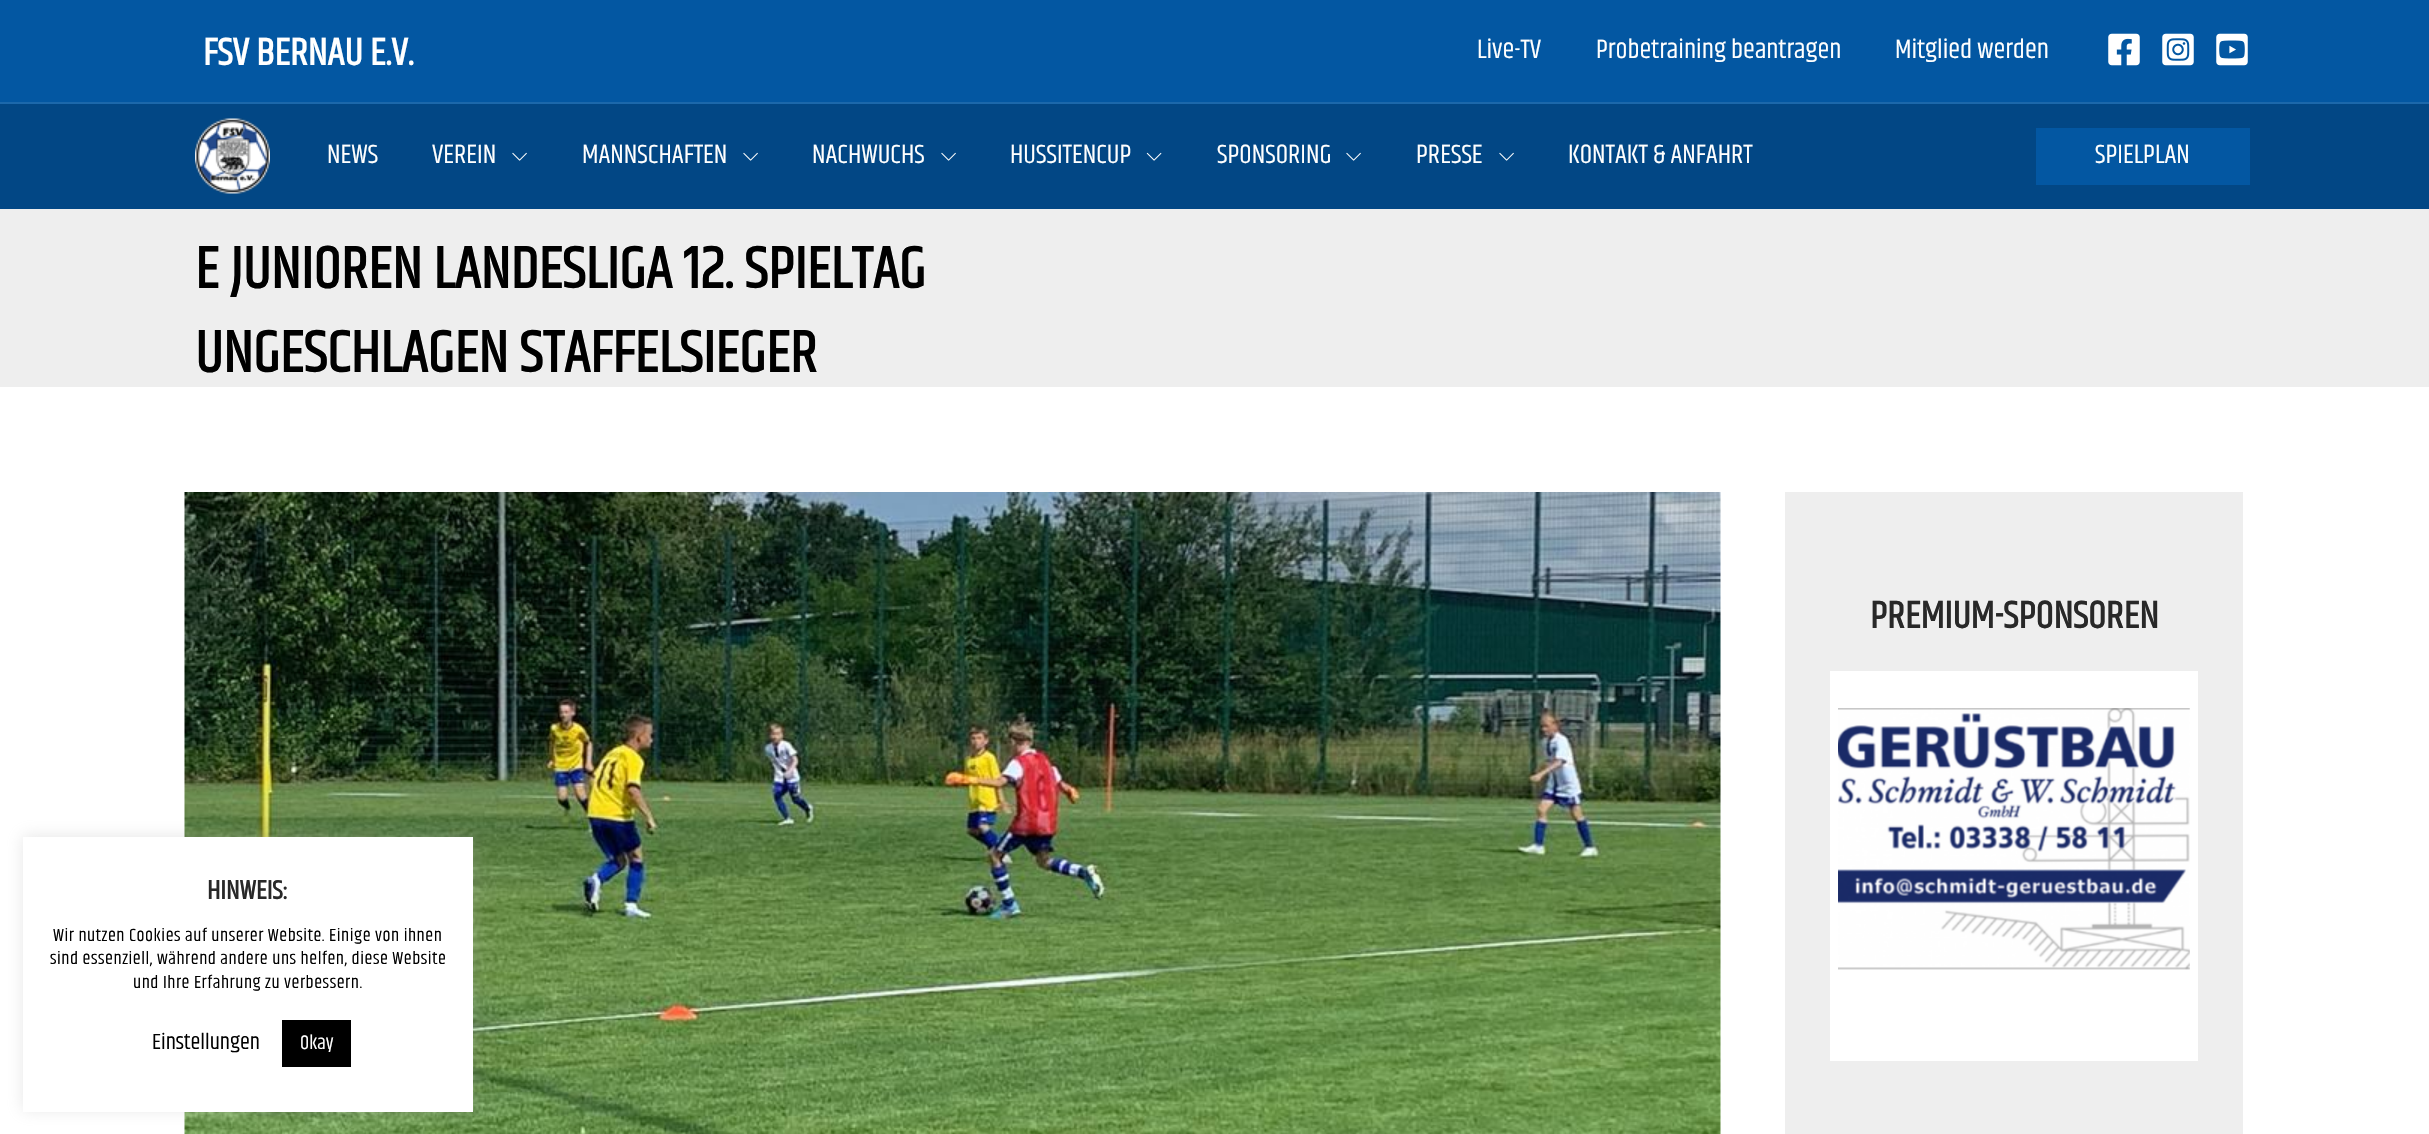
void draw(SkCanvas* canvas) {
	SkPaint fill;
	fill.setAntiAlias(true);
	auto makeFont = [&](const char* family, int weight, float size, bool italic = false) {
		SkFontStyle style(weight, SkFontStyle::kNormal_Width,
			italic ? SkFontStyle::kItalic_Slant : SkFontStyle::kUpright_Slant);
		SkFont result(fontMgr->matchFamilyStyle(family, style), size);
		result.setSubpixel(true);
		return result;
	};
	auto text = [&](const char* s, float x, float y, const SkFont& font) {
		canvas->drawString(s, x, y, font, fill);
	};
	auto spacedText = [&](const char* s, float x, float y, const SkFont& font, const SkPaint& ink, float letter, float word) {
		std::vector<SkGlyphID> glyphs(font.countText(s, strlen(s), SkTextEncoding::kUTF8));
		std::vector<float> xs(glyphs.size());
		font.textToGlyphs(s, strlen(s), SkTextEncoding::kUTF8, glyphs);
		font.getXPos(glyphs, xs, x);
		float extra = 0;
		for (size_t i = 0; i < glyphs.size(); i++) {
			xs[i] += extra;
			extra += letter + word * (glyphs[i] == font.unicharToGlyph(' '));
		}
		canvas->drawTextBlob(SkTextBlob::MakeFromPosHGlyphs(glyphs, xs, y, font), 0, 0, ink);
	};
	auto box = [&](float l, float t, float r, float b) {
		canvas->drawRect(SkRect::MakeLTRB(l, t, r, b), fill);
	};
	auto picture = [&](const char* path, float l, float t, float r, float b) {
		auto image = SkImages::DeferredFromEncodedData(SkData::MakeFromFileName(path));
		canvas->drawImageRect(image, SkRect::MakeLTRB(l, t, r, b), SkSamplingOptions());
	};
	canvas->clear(0xFFFFFFFF);
	fill.setColor(0xFF0357A2);
	box(0, 0, 2429, 102);
	fill.setColor(0xFF1C68AB);
	box(0, 102, 2429, 104);
	picture("image0.png", 2108, 33, 2140, 66);
	picture("image1.png", 2162, 33, 2194, 66);
	picture("image2.png", 2216, 33, 2248, 66);
	fill.setColor(0xFF024785);
	box(0, 104, 2429, 209);
	picture("image3.png", 195, 118, 270, 194);
	picture("image4.png", 512, 152, 527, 161);
	picture("image4.png", 743, 152, 758, 161);
	picture("image4.png", 941, 152, 956, 161);
	picture("image5.png", 1146, 152, 1162, 161);
	picture("image4.png", 1346, 152, 1361, 161);
	picture("image4.png", 1499, 152, 1514, 161);
	fill.setColor(0xFF0357A2);
	box(2036, 128, 2250, 185);
	fill.setColor(0xFFEEEEEE);
	box(0, 209, 2429, 387);
	picture("image6.png", 184, 492, 1721, 1134);
	box(1785, 492, 2243, 1134);
	fill.setColor(0xFFFFFFFF);
	box(1830, 671, 2198, 1061);
	picture("image7.png", 1838, 708, 2190, 970);
	fill.setColor(0x4DACABAB);
	fill.setMaskFilter(SkMaskFilter::MakeBlur(kNormal_SkBlurStyle, 7.5f));
	canvas->drawRect(SkRect::MakeLTRB(23, 836, 473, 1110), fill);
	fill.setMaskFilter(nullptr);
	fill.setColor(0xFFFFFFFF);
	box(23, 837, 473, 1112);
	fill.setColor(0xFF000000);
	box(282, 1020, 351, 1067);
	auto font1 = makeFont("Khand", 700, 39);
	fill.setColor(0xFFFFFFFF);
	text("FSV BERNAU E.V.", 203, 65, font1);
	auto font2 = makeFont("Khand", 400, 27);
	text("Live-TV", 1477, 58, font2);
	text("Probetraining beantragen", 1596, 58, font2);
	text("Mitglied werden", 1895, 58, font2);
	text("NEWS", 327, 163, font2);
	text("VEREIN", 432, 163, font2);
	text("MANNSCHAFTEN", 582, 163, font2);
	text("NACHWUCHS", 812, 163, font2);
	text("HUSSITENCUP", 1010, 163, font2);
	text("SPONSORING", 1217, 163, font2);
	text("PRESSE", 1416, 163, font2);
	text("KONTAKT & ANFAHRT", 1568, 163, font2);
	text("SPIELPLAN", 2095, 163, font2);
	auto font3 = makeFont("Khand", 700, 60);
	fill.setColor(0xFF000000);
	text("E JUNIOREN LANDESLIGA 12. SPIELTAG", 195, 288, font3);
	text("UNGESCHLAGEN STAFFELSIEGER", 195, 372, font3);
	fill.setColor(0xFF282828);
	text("PREMIUM-SPONSOREN", 1870, 628, font1);
	auto font4 = makeFont("Khand", 700, 27);
	text("HINWEIS:", 207, 899, font4);
	auto font5 = makeFont("Khand", 400, 18);
	fill.setColor(0xFF000000);
	spacedText("Wir nutzen Cookies auf unserer Website. Einige von ihnen", 53, 941, font5, fill, 0.55f, 0);
	spacedText("sind essenziell, während andere uns helfen, diese Website", 50, 964, font5, fill, 0.55f, 0);
	spacedText("und Ihre Erfahrung zu verbessern.", 133, 988, font5, fill, 0.55f, 0);
	auto font6 = makeFont("Khand", 400, 22.5f);
	text("Einstellungen", 152, 1049, font6);
	auto font7 = makeFont("Khand", 400, 20);
	fill.setColor(0xFFFFFFFF);
	text("Okay", 300, 1049, font7);
}
